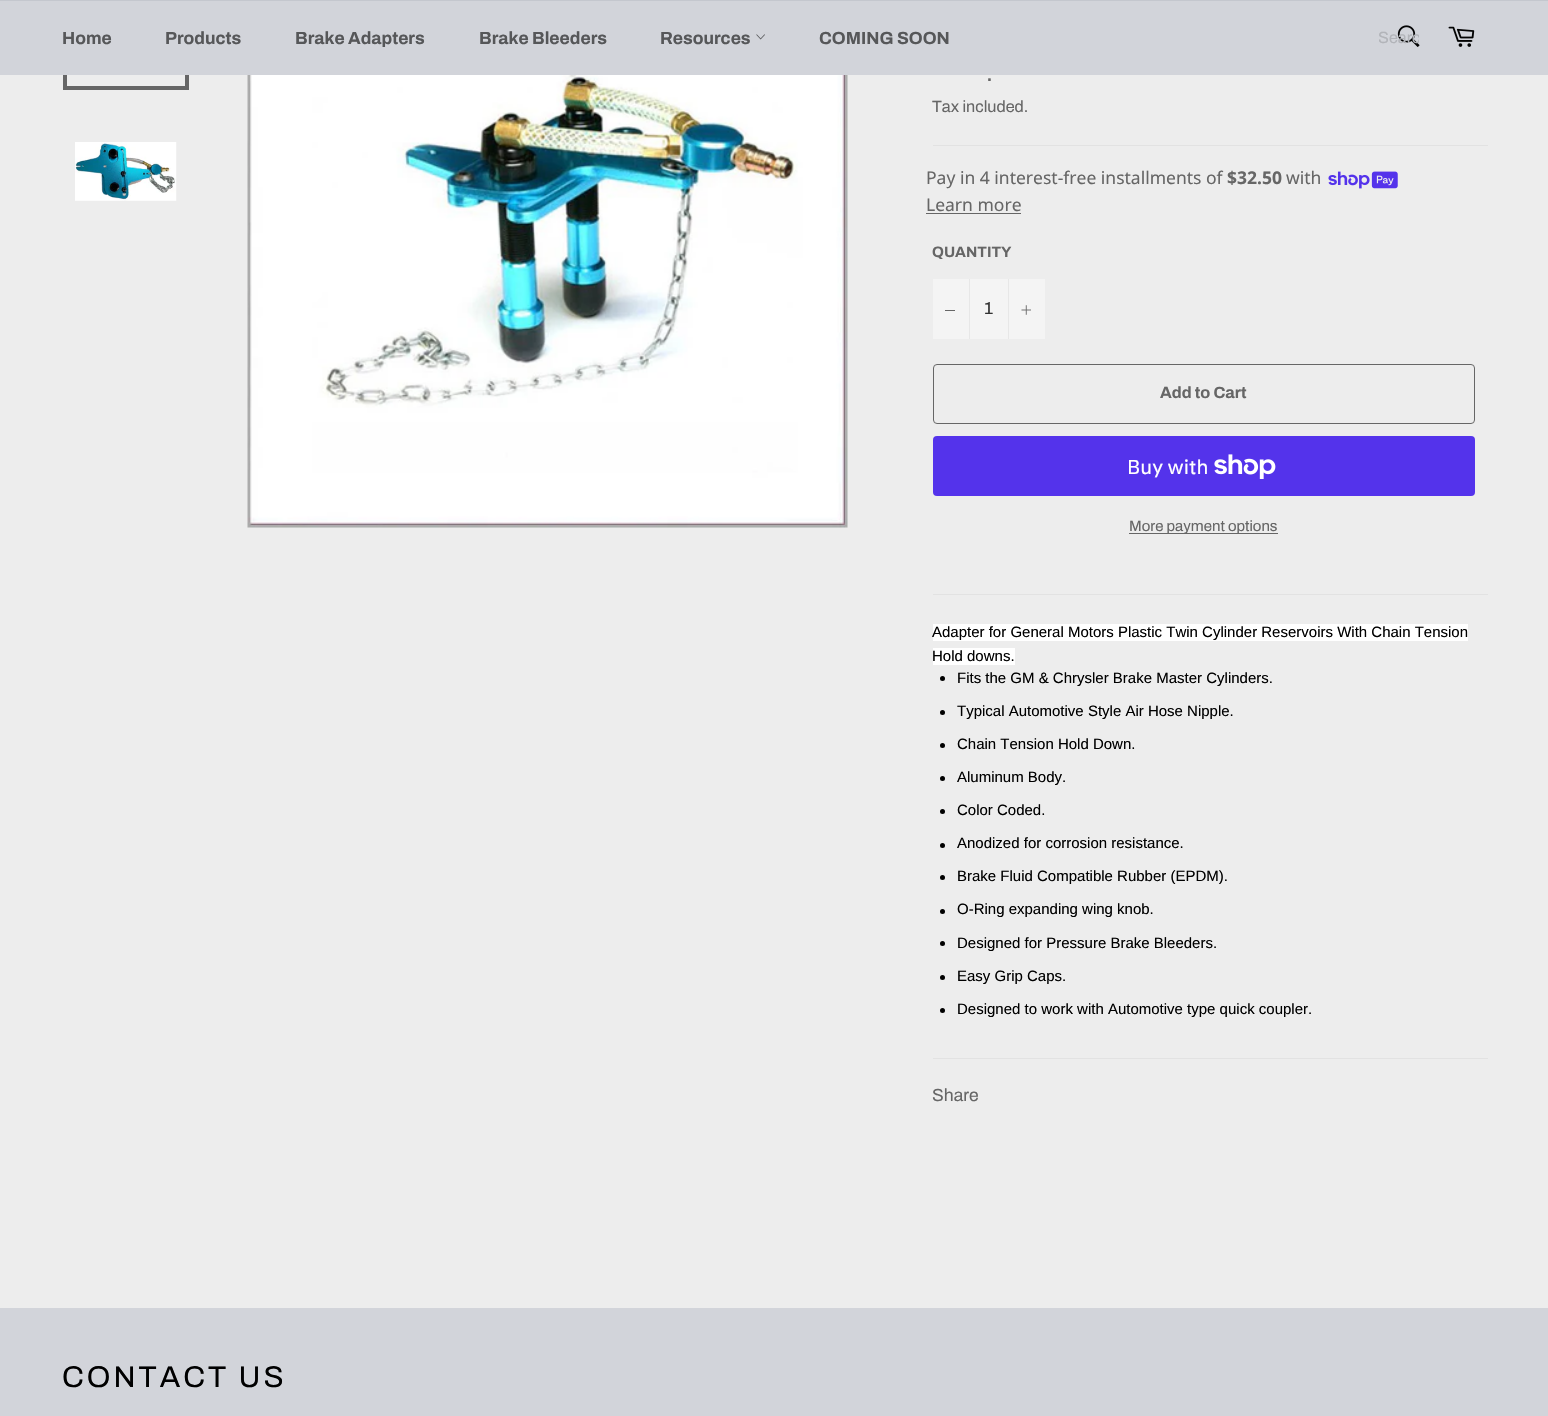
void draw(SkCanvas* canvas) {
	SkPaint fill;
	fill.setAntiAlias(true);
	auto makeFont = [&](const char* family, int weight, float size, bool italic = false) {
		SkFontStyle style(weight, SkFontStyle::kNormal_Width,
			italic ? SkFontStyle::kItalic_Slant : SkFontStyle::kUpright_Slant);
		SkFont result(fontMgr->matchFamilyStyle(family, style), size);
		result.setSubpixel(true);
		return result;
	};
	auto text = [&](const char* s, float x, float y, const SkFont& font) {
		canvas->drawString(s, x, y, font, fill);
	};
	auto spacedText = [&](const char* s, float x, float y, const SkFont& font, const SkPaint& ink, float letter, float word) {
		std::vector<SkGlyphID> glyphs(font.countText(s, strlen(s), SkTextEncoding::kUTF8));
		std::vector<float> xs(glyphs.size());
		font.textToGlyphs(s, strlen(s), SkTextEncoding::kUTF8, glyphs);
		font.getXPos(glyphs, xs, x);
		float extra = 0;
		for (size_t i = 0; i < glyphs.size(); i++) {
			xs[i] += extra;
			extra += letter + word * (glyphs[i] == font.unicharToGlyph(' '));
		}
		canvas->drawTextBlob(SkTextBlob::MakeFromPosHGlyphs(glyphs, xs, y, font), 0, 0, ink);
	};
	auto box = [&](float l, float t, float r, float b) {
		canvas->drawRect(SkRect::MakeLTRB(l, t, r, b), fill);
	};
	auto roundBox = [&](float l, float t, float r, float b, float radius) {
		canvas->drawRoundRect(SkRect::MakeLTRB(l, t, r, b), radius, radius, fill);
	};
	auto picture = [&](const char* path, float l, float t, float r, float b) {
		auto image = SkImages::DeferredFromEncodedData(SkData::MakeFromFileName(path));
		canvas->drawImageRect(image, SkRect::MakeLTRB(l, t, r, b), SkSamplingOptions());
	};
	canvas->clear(0xFFEDEDED);
	fill.setStyle(SkPaint::kStroke_Style);
	fill.setStrokeWidth(4);
	fill.setColor(0xFF666666);
	canvas->drawRect(SkRect::MakeLTRB(65, -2, 187, 88), fill);
	fill.setStyle(SkPaint::kFill_Style);
	fill.setColor(0xFFD2D4DA);
	box(0, 1, 1548, 75);
	fill.setColor(0xFFC4C7CE);
	box(0, 0, 1548, 1);
	picture("image0.png", 756, 34, 765, 40);
	picture("image1.png", 1397, 25, 1420, 47);
	picture("image2.png", 1448, 26, 1475, 47);
	picture("image3.png", 75, 142, 177, 201);
	picture("image4.png", 247, 75, 848, 528);
	fill.setColor(0xFFE2E2E2);
	box(933, 145, 1488, 146);
	picture("image5.png", 1328, 171, 1398, 189);
	fill.setColor(0xFF666666);
	box(926, 213, 1021, 214);
	fill.setColor(0xFFF4F4F4);
	box(933, 279, 1045, 339);
	fill.setColor(0xFFE7E7E7);
	box(969, 279, 970, 339);
	fill.setColor(0xFF666666);
	box(945, 310, 955, 311);
	fill.setColor(0xFFE7E7E7);
	box(1008, 279, 1009, 339);
	picture("image6.png", 1021, 305, 1031, 315);
	fill.setStyle(SkPaint::kStroke_Style);
	fill.setStrokeWidth(1);
	fill.setColor(0xFF666666);
	canvas->drawRoundRect(SkRect::MakeLTRB(933.5f, 364.5f, 1474.5f, 423.5f), 3.5f, 3.5f, fill);
	fill.setStyle(SkPaint::kFill_Style);
	fill.setColor(0xFF5433EB);
	roundBox(933, 436, 1475, 496, 4);
	picture("image7.png", 1214, 454, 1276, 479);
	fill.setColor(0xFF666666);
	box(1129, 533, 1278, 534);
	fill.setColor(0xFFE2E2E2);
	box(933, 594, 1488, 595);
	fill.setColor(0xFFFFFFFF);
	box(933, 624, 1468, 641);
	box(933, 648, 1015, 665);
	fill.setColor(0xFF000000);
	canvas->drawCircle(942.5f, 678.5f, 2.5f, fill);
	canvas->drawCircle(942.5f, 712.5f, 2.5f, fill);
	canvas->drawCircle(942.5f, 745.5f, 2.5f, fill);
	canvas->drawCircle(942.5f, 778.5f, 2.5f, fill);
	canvas->drawCircle(942.5f, 811.5f, 2.5f, fill);
	canvas->drawCircle(942.5f, 845.5f, 2.5f, fill);
	canvas->drawCircle(942.5f, 877.5f, 2.5f, fill);
	canvas->drawCircle(942.5f, 911.5f, 2.5f, fill);
	canvas->drawCircle(942.5f, 943.5f, 2.5f, fill);
	canvas->drawCircle(942.5f, 977.5f, 2.5f, fill);
	canvas->drawCircle(942.5f, 1010.5f, 2.5f, fill);
	fill.setColor(0xFFE2E2E2);
	box(933, 1058, 1488, 1059);
	fill.setColor(0xFFD2D4DA);
	box(0, 1308, 1548, 1416);
	auto font1 = makeFont("Archivo", 700, 17.5f);
	fill.setColor(0xFF565759);
	text("Home", 62, 44, font1);
	text("Products", 165, 44, font1);
	text("Brake Adapters", 295, 44, font1);
	text("Brake Bleeders", 479, 44, font1);
	text("Resources", 660, 44, font1);
	text("COMING SOON", 819, 44, font1);
	canvas->save();
	canvas->clipRect(SkRect::MakeLTRB(1379, 30, 1419, 48));
	auto font2 = makeFont("Archivo", 400, 16.25f);
	fill.setColor(0xFFB2B4B9);
	text("Searc", 1378, 43, font2);
	canvas->restore();
	auto font3 = makeFont("Archivo", 400, 25);
	fill.setColor(0xFF666666);
	text(".", 986, 81, font3);
	text("Tax included.", 932, 112, font2);
	auto font4 = makeFont("Noto Sans", 400, 17.5f);
	text("Pay in 4 interest-free installments of", 926, 184, font4);
	auto font5 = makeFont("Noto Sans", 700, 17.5f);
	text("$32.50", 1227, 184, font5);
	text("with", 1286, 184, font4);
	text("Learn more", 926, 211, font4);
	auto font6 = makeFont("Archivo", 700, 15);
	text("QUANTITY", 932, 257, font6);
	auto font7 = makeFont("Archivo", 400, 17.5f);
	fill.setColor(0xFF333333);
	text("1", 984, 314, font7);
	auto font8 = makeFont("Archivo", 700, 16.25f);
	fill.setColor(0xFF666666);
	text("Add to Cart", 1160, 398, font8);
	auto font9 = makeFont("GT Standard", 400, 20);
	fill.setColor(0xFFFFFFFF);
	text("Buy with", 1127, 474, font9);
	auto font10 = makeFont("Archivo", 400, 15);
	fill.setColor(0xFF666666);
	text("More payment options", 1129, 531, font10);
	auto font11 = makeFont("Liberation Sans", 400, 15);
	fill.setColor(0xFF000000);
	text("Adapter for General Motors Plastic Twin Cylinder Reservoirs With Chain Tension", 932, 637, font11);
	text("Hold downs.", 932, 661, font11);
	text("Fits the GM & Chrysler Brake Master Cylinders.", 957, 683, font11);
	text("Typical Automotive Style Air Hose Nipple.", 957, 716, font11);
	text("Chain Tension Hold Down.", 957, 749, font11);
	text("Aluminum Body.", 957, 782, font11);
	text("Color Coded.", 957, 815, font11);
	text("Anodized for corrosion resistance.", 957, 848, font11);
	text("Brake Fluid Compatible Rubber (EPDM).", 957, 881, font11);
	text("O-Ring expanding wing knob.", 957, 914, font11);
	text("Designed for Pressure Brake Bleeders.", 957, 948, font11);
	text("Easy Grip Caps.", 957, 981, font11);
	text("Designed to work with Automotive type quick coupler.", 957, 1014, font11);
	fill.setColor(0xFF666666);
	text("Share", 932, 1101, font7);
	auto font12 = makeFont("Archivo", 400, 30);
	fill.setColor(0xFF000000);
	spacedText("CONTACT US", 62, 1387, font12, fill, 3, 0);
}
